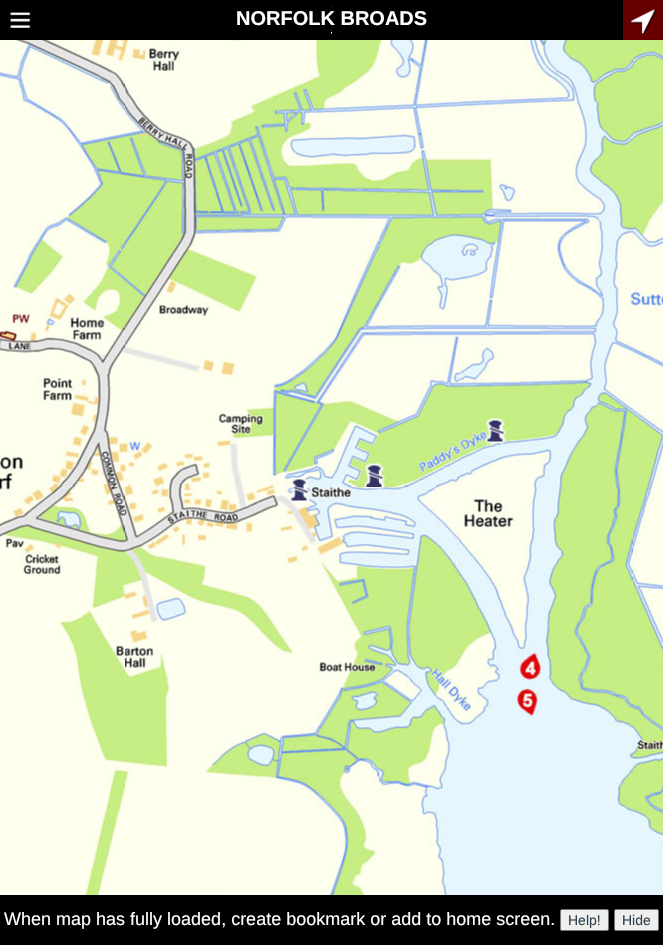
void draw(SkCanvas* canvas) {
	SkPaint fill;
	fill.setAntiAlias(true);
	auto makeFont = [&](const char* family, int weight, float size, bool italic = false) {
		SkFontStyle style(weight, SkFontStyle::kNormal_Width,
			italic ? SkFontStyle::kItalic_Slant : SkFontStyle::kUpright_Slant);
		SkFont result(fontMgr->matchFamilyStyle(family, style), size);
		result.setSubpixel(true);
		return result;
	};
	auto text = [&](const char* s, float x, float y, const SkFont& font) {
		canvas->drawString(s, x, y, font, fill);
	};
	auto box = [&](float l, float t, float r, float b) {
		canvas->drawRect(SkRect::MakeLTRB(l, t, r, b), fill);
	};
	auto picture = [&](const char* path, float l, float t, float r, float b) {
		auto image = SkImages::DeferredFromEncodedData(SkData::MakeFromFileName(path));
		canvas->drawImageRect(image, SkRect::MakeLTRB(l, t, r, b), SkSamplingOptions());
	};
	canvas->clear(0xFFFFFFFF);
	fill.setColor(0xFF000000);
	box(0, 0, 623, 40);
	picture("image0.png", 10, 12, 31, 28);
	fill.setColor(0xFF950808);
	box(331, 6, 332, 7);
	picture("image1.png", 331, 30, 332, 32);
	fill.setColor(0xFFFFFFFF);
	box(331, 32, 332, 33);
	fill.setColor(0xFFFF8A8A);
	box(331, 33, 332, 34);
	fill.setColor(0xFF660000);
	box(623, 0, 663, 40);
	picture("image2.png", 631, 9, 657, 35);
	picture("image3.png", 0, 40, 663, 487);
	picture("image4.png", 0, 487, 663, 895);
	fill.setColor(0xFF000000);
	box(0, 895, 663, 945);
	fill.setColor(0xFFEFEFEF);
	canvas->drawRoundRect(SkRect::MakeLTRB(560.5f, 909.5f, 608.5f, 930.5f), 1.5f, 1.5f, fill);
	fill.setStyle(SkPaint::kStroke_Style);
	fill.setStrokeWidth(1);
	fill.setColor(0xFF767676);
	canvas->drawRoundRect(SkRect::MakeLTRB(560.5f, 909.5f, 608.5f, 930.5f), 1.5f, 1.5f, fill);
	fill.setStyle(SkPaint::kFill_Style);
	fill.setColor(0xFFEFEFEF);
	canvas->drawRoundRect(SkRect::MakeLTRB(614.5f, 909.5f, 658.5f, 930.5f), 1.5f, 1.5f, fill);
	fill.setStyle(SkPaint::kStroke_Style);
	fill.setColor(0xFF767676);
	canvas->drawRoundRect(SkRect::MakeLTRB(614.5f, 909.5f, 658.5f, 930.5f), 1.5f, 1.5f, fill);
	auto font1 = makeFont("Liberation Sans", 700, 20);
	fill.setStyle(SkPaint::kFill_Style);
	fill.setColor(0xFFFFFFFF);
	text("NORFOLK BROADS", 236, 25, font1);
	auto font2 = makeFont("Liberation Sans", 400, 18);
	text("When map has fully loaded, create bookmark or add to home screen.", 4, 925, font2);
	auto font3 = makeFont("Liberation Sans", 400, 14);
	fill.setColor(0xFF2E404D);
	text("Help!", 568, 925, font3);
	text("Hide", 622, 925, font3);
}
